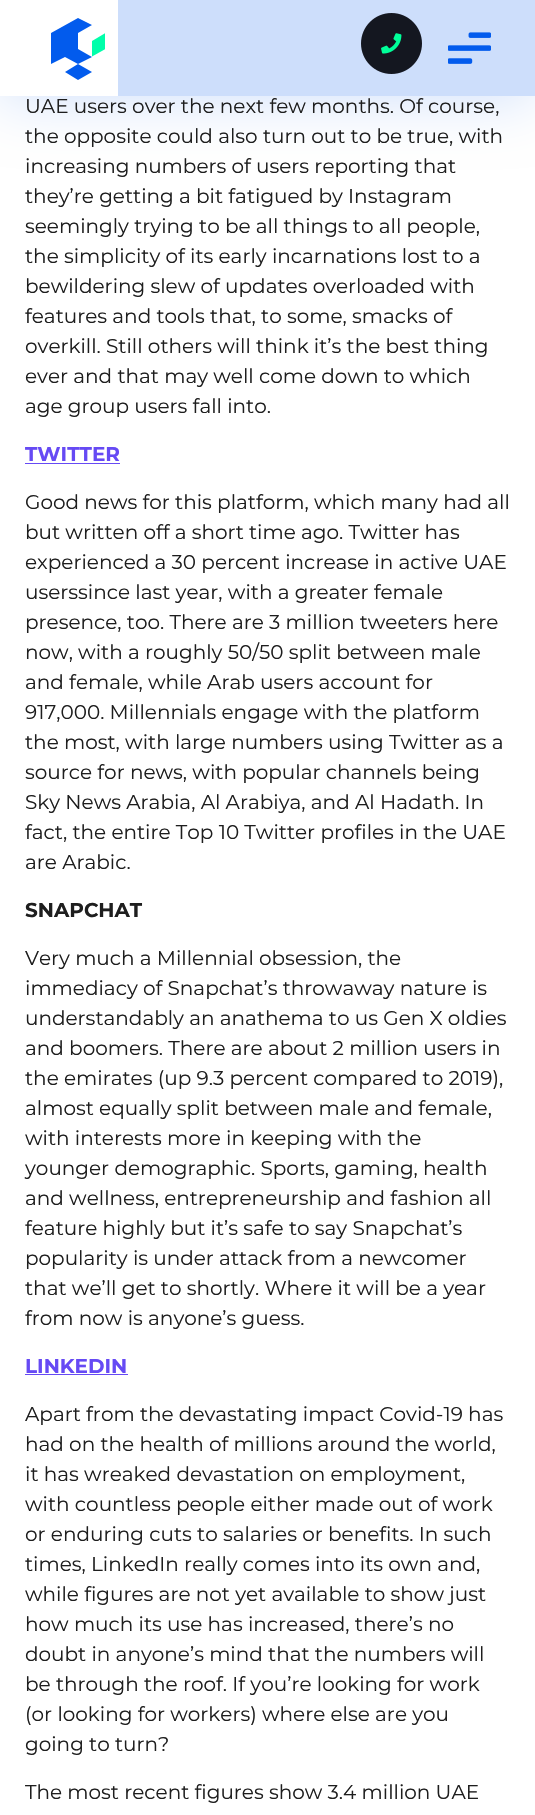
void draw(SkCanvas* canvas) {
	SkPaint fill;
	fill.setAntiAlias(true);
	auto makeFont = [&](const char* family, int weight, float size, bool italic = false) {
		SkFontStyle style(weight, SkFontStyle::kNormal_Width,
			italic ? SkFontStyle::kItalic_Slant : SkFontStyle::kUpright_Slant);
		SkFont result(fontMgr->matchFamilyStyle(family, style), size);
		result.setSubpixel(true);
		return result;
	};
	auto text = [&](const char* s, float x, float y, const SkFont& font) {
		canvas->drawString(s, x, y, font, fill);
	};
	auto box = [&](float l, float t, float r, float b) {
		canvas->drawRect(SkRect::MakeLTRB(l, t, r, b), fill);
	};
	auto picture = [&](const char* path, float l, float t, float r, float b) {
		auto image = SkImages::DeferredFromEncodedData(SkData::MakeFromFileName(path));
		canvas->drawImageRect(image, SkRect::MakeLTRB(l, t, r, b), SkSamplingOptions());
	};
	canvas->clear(0xFFFFFFFF);
	fill.setColor(0xFFCDDEFB);
	fill.setMaskFilter(SkMaskFilter::MakeBlur(kNormal_SkBlurStyle, 31));
	canvas->drawRect(SkRect::MakeLTRB(0, 0, 535, 96), fill);
	fill.setMaskFilter(nullptr);
	box(118, 0, 535, 96);
	fill.setColor(0xFFFFFFFF);
	box(0, 0, 118, 96);
	fill.setColor(0xFF025BED);
	canvas->drawPath(SkPathBuilder().moveTo(78, 64).lineTo(92, 57).lineTo(78, 49).lineTo(78, 33).lineTo(92, 25).lineTo(78, 18).lineTo(51, 33).lineTo(51, 64).lineTo(65, 57).lineTo(78, 64).lineTo(65, 72).lineTo(78, 80).lineTo(92, 72).close().detach(), fill);
	canvas->save();
	canvas->clipRect(SkRect::MakeLTRB(51, 18, 105, 80));
	fill.setColor(0xFF00FFAA);
	canvas->drawPath(SkPathBuilder().moveTo(105.5f, 33).lineTo(105.5f, 49).lineTo(92, 56.5f).lineTo(92, 41).close().detach(), fill);
	canvas->restore();
	picture("image0.png", 361, 13, 422, 74);
	picture("image1.png", 448, 32, 491, 64);
	fill.setColor(0xFF664AF4);
	box(25, 463, 120, 464);
	box(25, 1374, 128, 1375);
	auto font1 = makeFont("Montserrat", 400, 20);
	fill.setColor(0xFF1E1E1E);
	text("UAE users over the next few months. Of course,", 25, 113, font1);
	text("the opposite could also turn out to be true, with", 25, 143, font1);
	text("increasing numbers of users reporting that", 25, 173, font1);
	text("they’re getting a bit fatigued by Instagram", 25, 203, font1);
	text("seemingly trying to be all things to all people,", 25, 233, font1);
	text("the simplicity of its early incarnations lost to a", 25, 263, font1);
	text("bewildering slew of updates overloaded with", 25, 293, font1);
	text("features and tools that, to some, smacks of", 25, 323, font1);
	text("overkill. Still others will think it’s the best thing", 25, 353, font1);
	text("ever and that may well come down to which", 25, 383, font1);
	text("age group users fall into.", 25, 413, font1);
	auto font2 = makeFont("Montserrat", 700, 20);
	fill.setColor(0xFF664AF4);
	text("TWITTER", 25, 461, font2);
	fill.setColor(0xFF1E1E1E);
	text("Good news for this platform, which many had all", 25, 509, font1);
	text("but written off a short time ago. Twitter has", 25, 539, font1);
	text("experienced a 30 percent increase in active UAE", 25, 569, font1);
	text("userssince last year, with a greater female", 25, 599, font1);
	text("presence, too. There are 3 million tweeters here", 25, 629, font1);
	text("now, with a roughly 50/50 split between male", 25, 659, font1);
	text("and female, while Arab users account for", 25, 689, font1);
	text("917,000. Millennials engage with the platform", 25, 719, font1);
	text("the most, with large numbers using Twitter as a", 25, 749, font1);
	text("source for news, with popular channels being", 25, 779, font1);
	text("Sky News Arabia, Al Arabiya, and Al Hadath. In", 25, 809, font1);
	text("fact, the entire Top 10 Twitter profiles in the UAE", 25, 839, font1);
	text("are Arabic.", 25, 869, font1);
	text("SNAPCHAT", 25, 917, font2);
	text("Very much a Millennial obsession, the", 25, 965, font1);
	text("immediacy of Snapchat’s throwaway nature is", 25, 995, font1);
	text("understandably an anathema to us Gen X oldies", 25, 1025, font1);
	text("and boomers. There are about 2 million users in", 25, 1055, font1);
	text("the emirates (up 9.3 percent compared to 2019),", 25, 1085, font1);
	text("almost equally split between male and female,", 25, 1115, font1);
	text("with interests more in keeping with the", 25, 1145, font1);
	text("younger demographic. Sports, gaming, health", 25, 1175, font1);
	text("and wellness, entrepreneurship and fashion all", 25, 1205, font1);
	text("feature highly but it’s safe to say Snapchat’s", 25, 1235, font1);
	text("popularity is under attack from a newcomer", 25, 1265, font1);
	text("that we’ll get to shortly. Where it will be a year", 25, 1295, font1);
	text("from now is anyone’s guess.", 25, 1325, font1);
	fill.setColor(0xFF664AF4);
	text("LINKEDIN", 25, 1373, font2);
	fill.setColor(0xFF1E1E1E);
	text("Apart from the devastating impact Covid-19 has", 25, 1421, font1);
	text("had on the health of millions around the world,", 25, 1451, font1);
	text("it has wreaked devastation on employment,", 25, 1481, font1);
	text("with countless people either made out of work", 25, 1511, font1);
	text("or enduring cuts to salaries or benefits. In such", 25, 1541, font1);
	text("times, LinkedIn really comes into its own and,", 25, 1571, font1);
	text("while figures are not yet available to show just", 25, 1601, font1);
	text("how much its use has increased, there’s no", 25, 1631, font1);
	text("doubt in anyone’s mind that the numbers will", 25, 1661, font1);
	text("be through the roof. If you’re looking for work", 25, 1691, font1);
	text("(or looking for workers) where else are you", 25, 1721, font1);
	text("going to turn?", 25, 1751, font1);
	text("The most recent figures show 3.4 million UAE", 25, 1799, font1);
}
